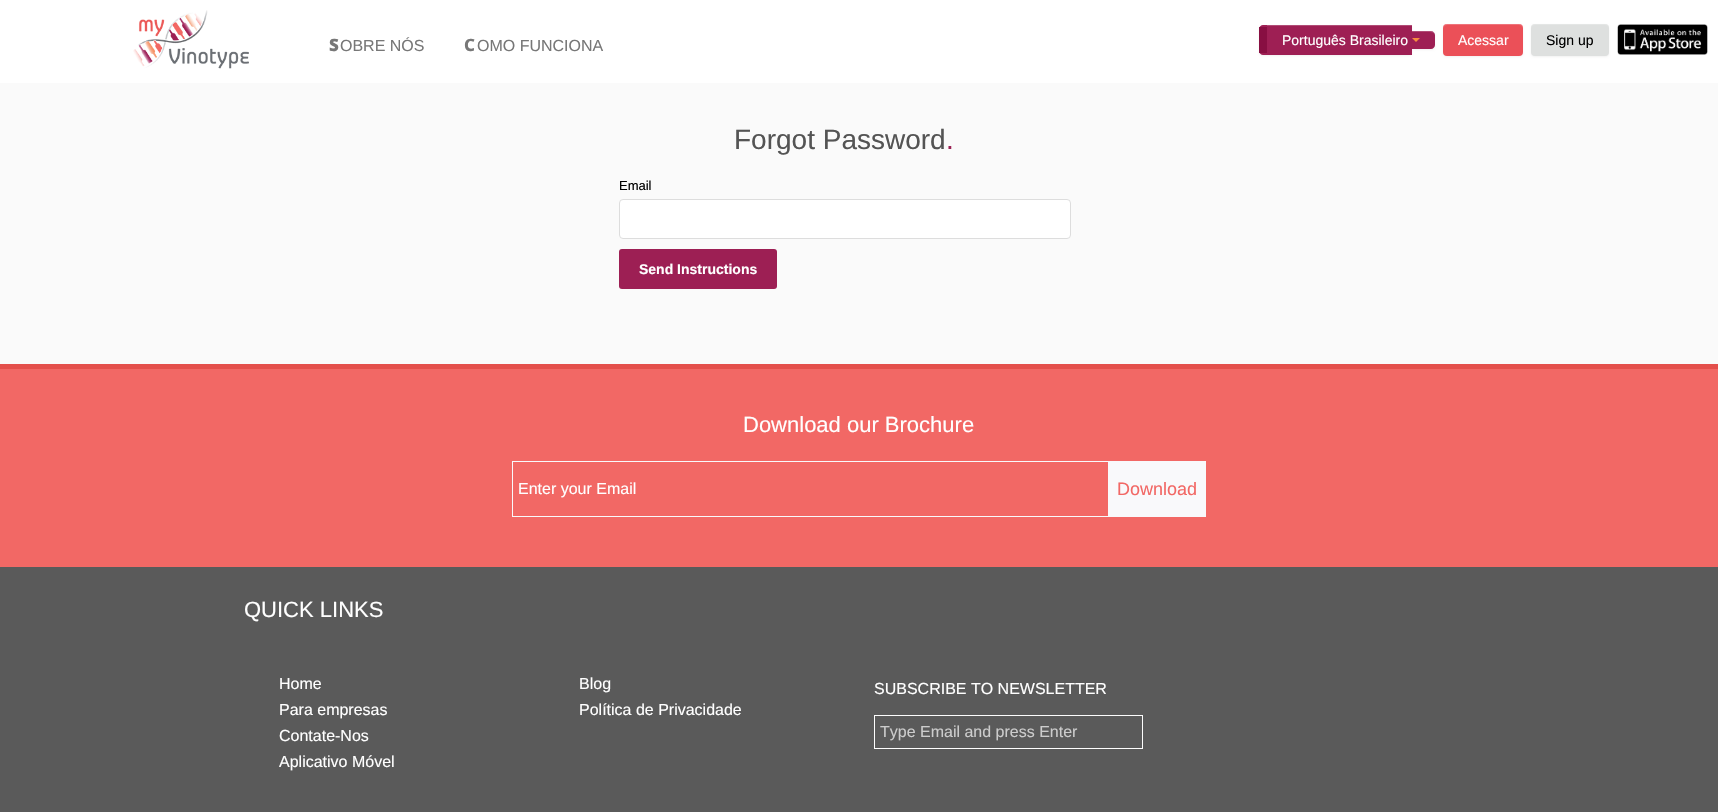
void draw(SkCanvas* canvas) {
	SkPaint fill;
	fill.setAntiAlias(true);
	auto makeFont = [&](const char* family, int weight, float size, bool italic = false) {
		SkFontStyle style(weight, SkFontStyle::kNormal_Width,
			italic ? SkFontStyle::kItalic_Slant : SkFontStyle::kUpright_Slant);
		SkFont result(fontMgr->matchFamilyStyle(family, style), size);
		result.setSubpixel(true);
		return result;
	};
	auto text = [&](const char* s, float x, float y, const SkFont& font) {
		canvas->drawString(s, x, y, font, fill);
	};
	auto box = [&](float l, float t, float r, float b) {
		canvas->drawRect(SkRect::MakeLTRB(l, t, r, b), fill);
	};
	auto roundBox = [&](float l, float t, float r, float b, float radius) {
		canvas->drawRoundRect(SkRect::MakeLTRB(l, t, r, b), radius, radius, fill);
	};
	auto picture = [&](const char* path, float l, float t, float r, float b) {
		auto image = SkImages::DeferredFromEncodedData(SkData::MakeFromFileName(path));
		canvas->drawImageRect(image, SkRect::MakeLTRB(l, t, r, b), SkSamplingOptions());
	};
	canvas->clear(0xFFFAFAFA);
	fill.setColor(0xFFFFFFFF);
	box(0, 0, 1718, 83);
	picture("image0.png", 133, 10, 249, 69);
	fill.setColor(0x0D000000);
	fill.setMaskFilter(SkMaskFilter::MakeBlur(kNormal_SkBlurStyle, 1));
	canvas->drawRoundRect(SkRect::MakeLTRB(1259, 26, 1412, 56), 4, 4, fill);
	fill.setMaskFilter(nullptr);
	fill.setColor(0xFF9E1F54);
	canvas->drawPath(SkPathBuilder().moveTo(1263, 25).lineTo(1412, 25).lineTo(1412, 55).lineTo(1263, 55).cubicTo(1261, 55, 1259, 53, 1259, 51).lineTo(1259, 29).cubicTo(1259, 27, 1261, 25, 1263, 25).close().detach(), fill);
	fill.setColor(0xFFB14C76);
	box(1267, 25, 1412, 26);
	fill.setColor(0xFF880F42);
	box(1259, 27, 1267, 53);
	fill.setColor(0x0D000000);
	fill.setMaskFilter(SkMaskFilter::MakeBlur(kNormal_SkBlurStyle, 1));
	canvas->drawRoundRect(SkRect::MakeLTRB(1412, 32, 1435, 50), 4, 4, fill);
	fill.setMaskFilter(nullptr);
	fill.setColor(0xFF9E1F54);
	canvas->drawPath(SkPathBuilder().moveTo(1412, 31).lineTo(1431, 31).cubicTo(1433, 31, 1435, 33, 1435, 35).lineTo(1435, 45).cubicTo(1435, 47, 1433, 49, 1431, 49).lineTo(1412, 49).close().detach(), fill);
	fill.setColor(0x33FFFFFF);
	canvas->drawPath(SkPathBuilder().moveTo(1412, 32).lineTo(1428, 32).cubicTo(1433.5f, 32, 1435, 33, 1435, 36).cubicTo(1435, 29.5f, 1429.5f, 31, 1424.5f, 31).lineTo(1412, 31).close().detach(), fill);
	fill.setColor(0xFFF78C40);
	canvas->drawPath(SkPathBuilder().moveTo(1412, 38).lineTo(1420, 38).lineTo(1416, 42).close().detach(), fill);
	fill.setColor(0x0D000000);
	fill.setMaskFilter(SkMaskFilter::MakeBlur(kNormal_SkBlurStyle, 1));
	canvas->drawRoundRect(SkRect::MakeLTRB(1443, 25, 1523, 57), 4, 4, fill);
	fill.setMaskFilter(nullptr);
	fill.setColor(0xFFEB5058);
	roundBox(1443, 24, 1523, 56, 4);
	fill.setColor(0x33FFFFFF);
	canvas->drawPath(SkPathBuilder().moveTo(1447, 25).lineTo(1519, 25).cubicTo(1521, 25, 1523, 27, 1523, 29).cubicTo(1523, 21, 1512, 24, 1507, 24).lineTo(1459, 24).cubicTo(1454, 24, 1443, 21, 1443, 29).cubicTo(1443, 27, 1445, 25, 1447, 25).close().detach(), fill);
	fill.setColor(0x0D000000);
	fill.setMaskFilter(SkMaskFilter::MakeBlur(kNormal_SkBlurStyle, 1));
	canvas->drawRoundRect(SkRect::MakeLTRB(1531, 25, 1609, 57), 4, 4, fill);
	fill.setMaskFilter(nullptr);
	fill.setColor(0xFFDEE0DF);
	roundBox(1531, 24, 1609, 56, 4);
	fill.setColor(0x33FFFFFF);
	canvas->drawPath(SkPathBuilder().moveTo(1535, 25).lineTo(1605, 25).cubicTo(1607, 25, 1609, 27, 1609, 29).cubicTo(1609, 21, 1598, 24, 1593, 24).lineTo(1547, 24).cubicTo(1542, 24, 1531, 21, 1531, 29).cubicTo(1531, 27, 1533, 25, 1535, 25).close().detach(), fill);
	picture("image1.png", 1617, 24, 1708, 55);
	fill.setColor(0xFFFFFFFF);
	canvas->drawRoundRect(SkRect::MakeLTRB(619.5f, 199.5f, 1070.5f, 238.5f), 3.5f, 3.5f, fill);
	fill.setStyle(SkPaint::kStroke_Style);
	fill.setStrokeWidth(1);
	fill.setColor(0xFFDDDDDD);
	canvas->drawRoundRect(SkRect::MakeLTRB(619.5f, 199.5f, 1070.5f, 238.5f), 3.5f, 3.5f, fill);
	fill.setStyle(SkPaint::kFill_Style);
	fill.setColor(0xFF9D1F54);
	roundBox(619, 249, 777, 289, 3);
	fill.setColor(0xFFF26865);
	box(0, 369, 1718, 567);
	fill.setColor(0xFFE44F4B);
	box(0, 364, 1718, 369);
	fill.setStyle(SkPaint::kStroke_Style);
	fill.setColor(0xFFF9F9FB);
	canvas->drawRect(SkRect::MakeLTRB(512.5f, 461.5f, 1108.5f, 516.5f), fill);
	fill.setStyle(SkPaint::kFill_Style);
	box(1109, 461, 1206, 517);
	fill.setColor(0xFF5A5A5A);
	box(0, 567, 1718, 812);
	fill.setStyle(SkPaint::kStroke_Style);
	fill.setColor(0xFFFDFDFD);
	canvas->drawRect(SkRect::MakeLTRB(874.5f, 715.5f, 1142.5f, 748.5f), fill);
	auto font1 = makeFont("Noto Sans", 900, 17);
	fill.setStyle(SkPaint::kFill_Style);
	fill.setColor(0xFF777777);
	text("S", 329, 51, font1);
	auto font2 = makeFont("Liberation Sans", 400, 16);
	text("OBRE NÓS", 340, 51, font2);
	auto font3 = makeFont("Noto Sans", 800, 17);
	text("C", 464, 51, font3);
	text("OMO FUNCIONA", 477, 51, font2);
	auto font4 = makeFont("Liberation Sans", 400, 14);
	fill.setColor(0xFFFFFFFF);
	text("Português Brasileiro", 1282, 45, font4);
	text("Acessar", 1458, 45, font4);
	fill.setColor(0xFF000000);
	text("Sign up", 1546, 45, font4);
	auto font5 = makeFont("Liberation Sans", 400, 28);
	fill.setColor(0xFF545454);
	text("Forgot Password", 734, 149, font5);
	fill.setColor(0xFF9A2053);
	text(".", 946, 149, font5);
	auto font6 = makeFont("Liberation Sans", 400, 13);
	fill.setColor(0xFF000000);
	text("Email", 619, 190, font6);
	auto font7 = makeFont("Liberation Sans", 700, 14);
	fill.setColor(0xFFFFFFFF);
	text("Send Instructions", 639, 274, font7);
	auto font8 = makeFont("Liberation Sans", 400, 22);
	text("Download our Brochure", 743, 432, font8);
	text("Enter your Email", 518, 494, font2);
	auto font9 = makeFont("Liberation Sans", 400, 18);
	fill.setColor(0xFFF26865);
	text("Download", 1117, 495, font9);
	fill.setColor(0xFFFFFFFF);
	text("QUICK LINKS", 244, 617, font8);
	text("Home", 279, 689, font2);
	text("Para empresas", 279, 715, font2);
	text("Contate-Nos", 279, 741, font2);
	text("Aplicativo Móvel", 279, 767, font2);
	text("Blog", 579, 689, font2);
	text("Política de Privacidade", 579, 715, font2);
	text("SUBSCRIBE TO NEWSLETTER", 874, 694, font2);
	fill.setColor(0xFFCCCCCC);
	text("Type Email and press Enter", 880, 737, font2);
}
